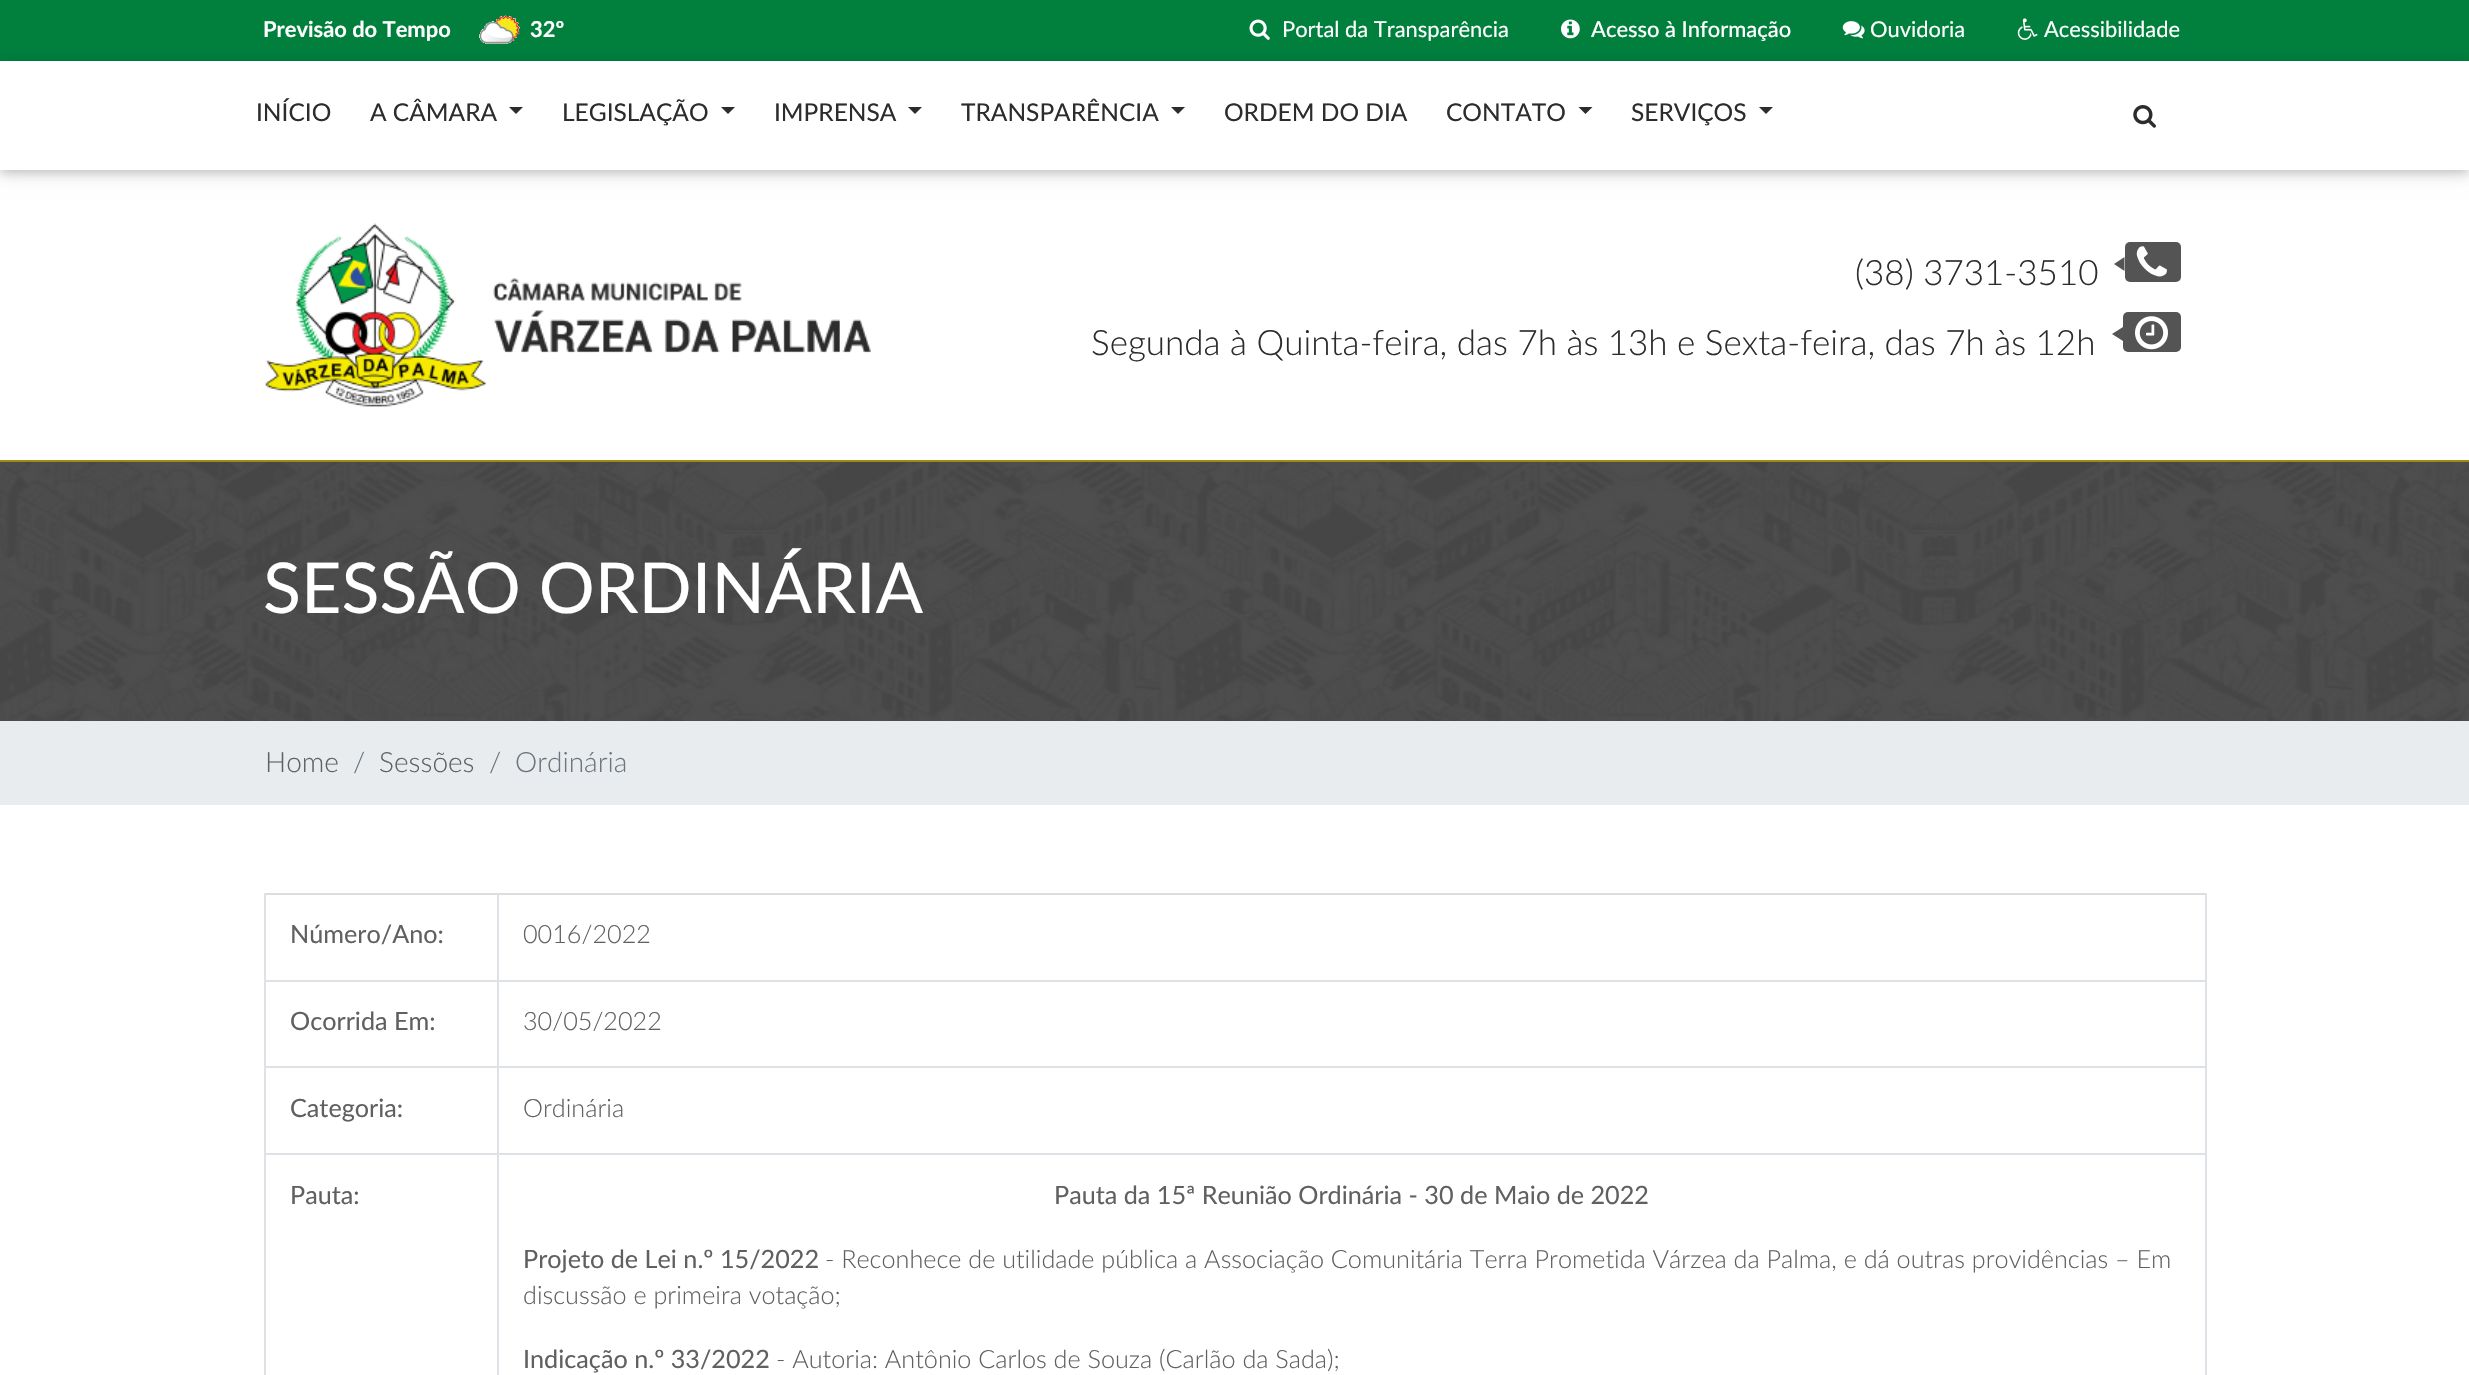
void draw(SkCanvas* canvas) {
	SkPaint fill;
	fill.setAntiAlias(true);
	auto makeFont = [&](const char* family, int weight, float size, bool italic = false) {
		SkFontStyle style(weight, SkFontStyle::kNormal_Width,
			italic ? SkFontStyle::kItalic_Slant : SkFontStyle::kUpright_Slant);
		SkFont result(fontMgr->matchFamilyStyle(family, style), size);
		result.setSubpixel(true);
		return result;
	};
	auto text = [&](const char* s, float x, float y, const SkFont& font) {
		canvas->drawString(s, x, y, font, fill);
	};
	auto box = [&](float l, float t, float r, float b) {
		canvas->drawRect(SkRect::MakeLTRB(l, t, r, b), fill);
	};
	auto roundBox = [&](float l, float t, float r, float b, float radius) {
		canvas->drawRoundRect(SkRect::MakeLTRB(l, t, r, b), radius, radius, fill);
	};
	auto picture = [&](const char* path, float l, float t, float r, float b) {
		auto image = SkImages::DeferredFromEncodedData(SkData::MakeFromFileName(path));
		canvas->drawImageRect(image, SkRect::MakeLTRB(l, t, r, b), SkSamplingOptions());
	};
	canvas->clear(0xFFFFFFFF);
	fill.setColor(0xFF007F3D);
	box(0, 0, 2469, 61);
	picture("image0.png", 479, 15, 520, 44);
	picture("image1.png", 1249, 19, 1270, 40);
	picture("image2.png", 1561, 19, 1580, 39);
	picture("image3.png", 1842, 21, 1865, 39);
	picture("image4.png", 2017, 18, 2038, 40);
	fill.setColor(0x1F000000);
	fill.setMaskFilter(SkMaskFilter::MakeBlur(kNormal_SkBlurStyle, 9));
	canvas->drawRect(SkRect::MakeLTRB(0, 65, 2469, 173), fill);
	fill.setMaskFilter(nullptr);
	fill.setColor(0x29000000);
	fill.setMaskFilter(SkMaskFilter::MakeBlur(kNormal_SkBlurStyle, 4.5f));
	canvas->drawRect(SkRect::MakeLTRB(0, 65, 2469, 173), fill);
	fill.setMaskFilter(nullptr);
	fill.setColor(0xFFFFFFFF);
	box(0, 61, 2469, 170);
	fill.setColor(0xFF2C2C2C);
	canvas->drawPath(SkPathBuilder().moveTo(509, 107).lineTo(523, 107).lineTo(516, 114).close().detach(), fill);
	canvas->drawPath(SkPathBuilder().moveTo(721, 107).lineTo(735, 107).lineTo(728, 114).close().detach(), fill);
	canvas->drawPath(SkPathBuilder().moveTo(908, 107).lineTo(922, 107).lineTo(915, 114).close().detach(), fill);
	canvas->drawPath(SkPathBuilder().moveTo(1171, 107).lineTo(1185, 107).lineTo(1178, 114).close().detach(), fill);
	canvas->drawPath(SkPathBuilder().moveTo(1578.5f, 107).lineTo(1592.5f, 107).lineTo(1585.5f, 114).close().detach(), fill);
	canvas->drawPath(SkPathBuilder().moveTo(1759, 107).lineTo(1773, 107).lineTo(1766, 114).close().detach(), fill);
	picture("image5.png", 2133, 105, 2156, 128);
	fill.setColor(0xFF9D8D0E);
	box(0, 460, 2469, 462);
	picture("image6.png", 265, 223, 871, 407);
	fill.setColor(0xFF545454);
	roundBox(2125, 242, 2181, 282, 5);
	canvas->drawPath(SkPathBuilder().moveTo(2124.5f, 257).lineTo(2124.5f, 271).lineTo(2114, 264).close().detach(), fill);
	picture("image7.png", 2136, 246, 2167, 277);
	roundBox(2123, 312, 2181, 352, 5);
	canvas->drawPath(SkPathBuilder().moveTo(2123, 327).lineTo(2123, 341).lineTo(2112, 334).close().detach(), fill);
	picture("image8.png", 2135, 316, 2168, 350);
	picture("image9.png", 0, 462, 2469, 721);
	fill.setColor(0xFFE9ECEF);
	box(0, 721, 2469, 805);
	fill.setColor(0xFFDDDDDD);
	box(264, 893, 2207, 895);
	fill.setColor(0xFFDEE2E6);
	box(2205, 980, 2207, 1375);
	box(2205, 893, 2207, 982);
	box(497, 1153, 499, 1375);
	box(497, 1153, 2207, 1155);
	box(497, 1066, 499, 1155);
	box(497, 1066, 2207, 1068);
	box(497, 980, 499, 1068);
	box(497, 980, 2207, 982);
	box(497, 893, 499, 982);
	box(264, 1153, 266, 1375);
	box(264, 1153, 499, 1155);
	box(264, 1066, 266, 1155);
	box(264, 1066, 499, 1068);
	box(264, 980, 266, 1068);
	box(264, 980, 499, 982);
	box(264, 893, 266, 982);
	auto font1 = makeFont("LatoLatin", 700, 21.9f);
	fill.setColor(0xFFFFFFFF);
	text("Previsão do Tempo", 263, 37, font1);
	text("32º", 530, 37, font1);
	auto font2 = makeFont("LatoLatin", 400, 21.9f);
	text("Portal da Transparência", 1282, 37, font2);
	auto font3 = makeFont("LatoLatin", 500, 21.9f);
	text("Acesso à Informação", 1591, 37, font3);
	text("Ouvidoria", 1870, 37, font2);
	text("Acessibilidade", 2044, 37, font2);
	auto font4 = makeFont("LatoLatin", 400, 24.5f);
	fill.setColor(0xFF2C2C2C);
	text("INÍCIO", 256, 121, font4);
	text("A CÂMARA", 370, 121, font4);
	text("LEGISLAÇÃO", 562, 121, font4);
	text("IMPRENSA", 774, 121, font4);
	text("TRANSPARÊNCIA", 961, 121, font4);
	text("ORDEM DO DIA", 1224, 121, font4);
	text("CONTATO", 1446, 121, font4);
	text("SERVIÇOS", 1631, 121, font4);
	auto font5 = makeFont("LatoLatin", 300, 35);
	text("(38) 3731-3510", 1855, 285, font5);
	text("Segunda à Quinta-feira, das 7h às 13h e Sexta-feira, das 7h às 12h", 1091, 355, font5);
	auto font6 = makeFont("LatoLatin", 400, 70);
	fill.setColor(0xFFFFFFFF);
	text("SESSÃO ORDINÁRIA", 263, 613, font6);
	auto font7 = makeFont("LatoLatin", 300, 28);
	fill.setColor(0xFF606060);
	text("Home", 265, 772, font7);
	fill.setColor(0xFF6C757D);
	text("/", 353, 772, font7);
	fill.setColor(0xFF606060);
	text("Sessões", 379, 772, font7);
	fill.setColor(0xFF6C757D);
	text("/", 489, 772, font7);
	text("Ordinária", 515, 772, font7);
	auto font8 = makeFont("LatoLatin", 400, 25.2f);
	fill.setColor(0xFF606060);
	text("Número/Ano:", 290, 943, font8);
	auto font9 = makeFont("LatoLatin", 300, 25.2f);
	text("0016/2022", 523, 943, font9);
	text("Ocorrida Em:", 290, 1030, font8);
	text("30/05/2022", 523, 1030, font9);
	text("Categoria:", 290, 1117, font8);
	text("Ordinária", 523, 1117, font9);
	text("Pauta:", 290, 1204, font8);
	text("Pauta da 15ª Reunião Ordinária - 30 de Maio de 2022", 1054, 1204, font8);
	text("Projeto de Lei n.º 15/2022", 523, 1268, font8);
	text("- Reconhece de utilidade pública a Associação Comunitária Terra Prometida Várzea da Palma, e dá outras providências – Em", 825, 1268, font9);
	text("discussão e primeira votação;", 523, 1304, font9);
	text("Indicação n.º 33/2022", 523, 1368, font8);
	text("- Autoria: Antônio Carlos de Souza (Carlão da Sada);", 776, 1368, font9);
}
